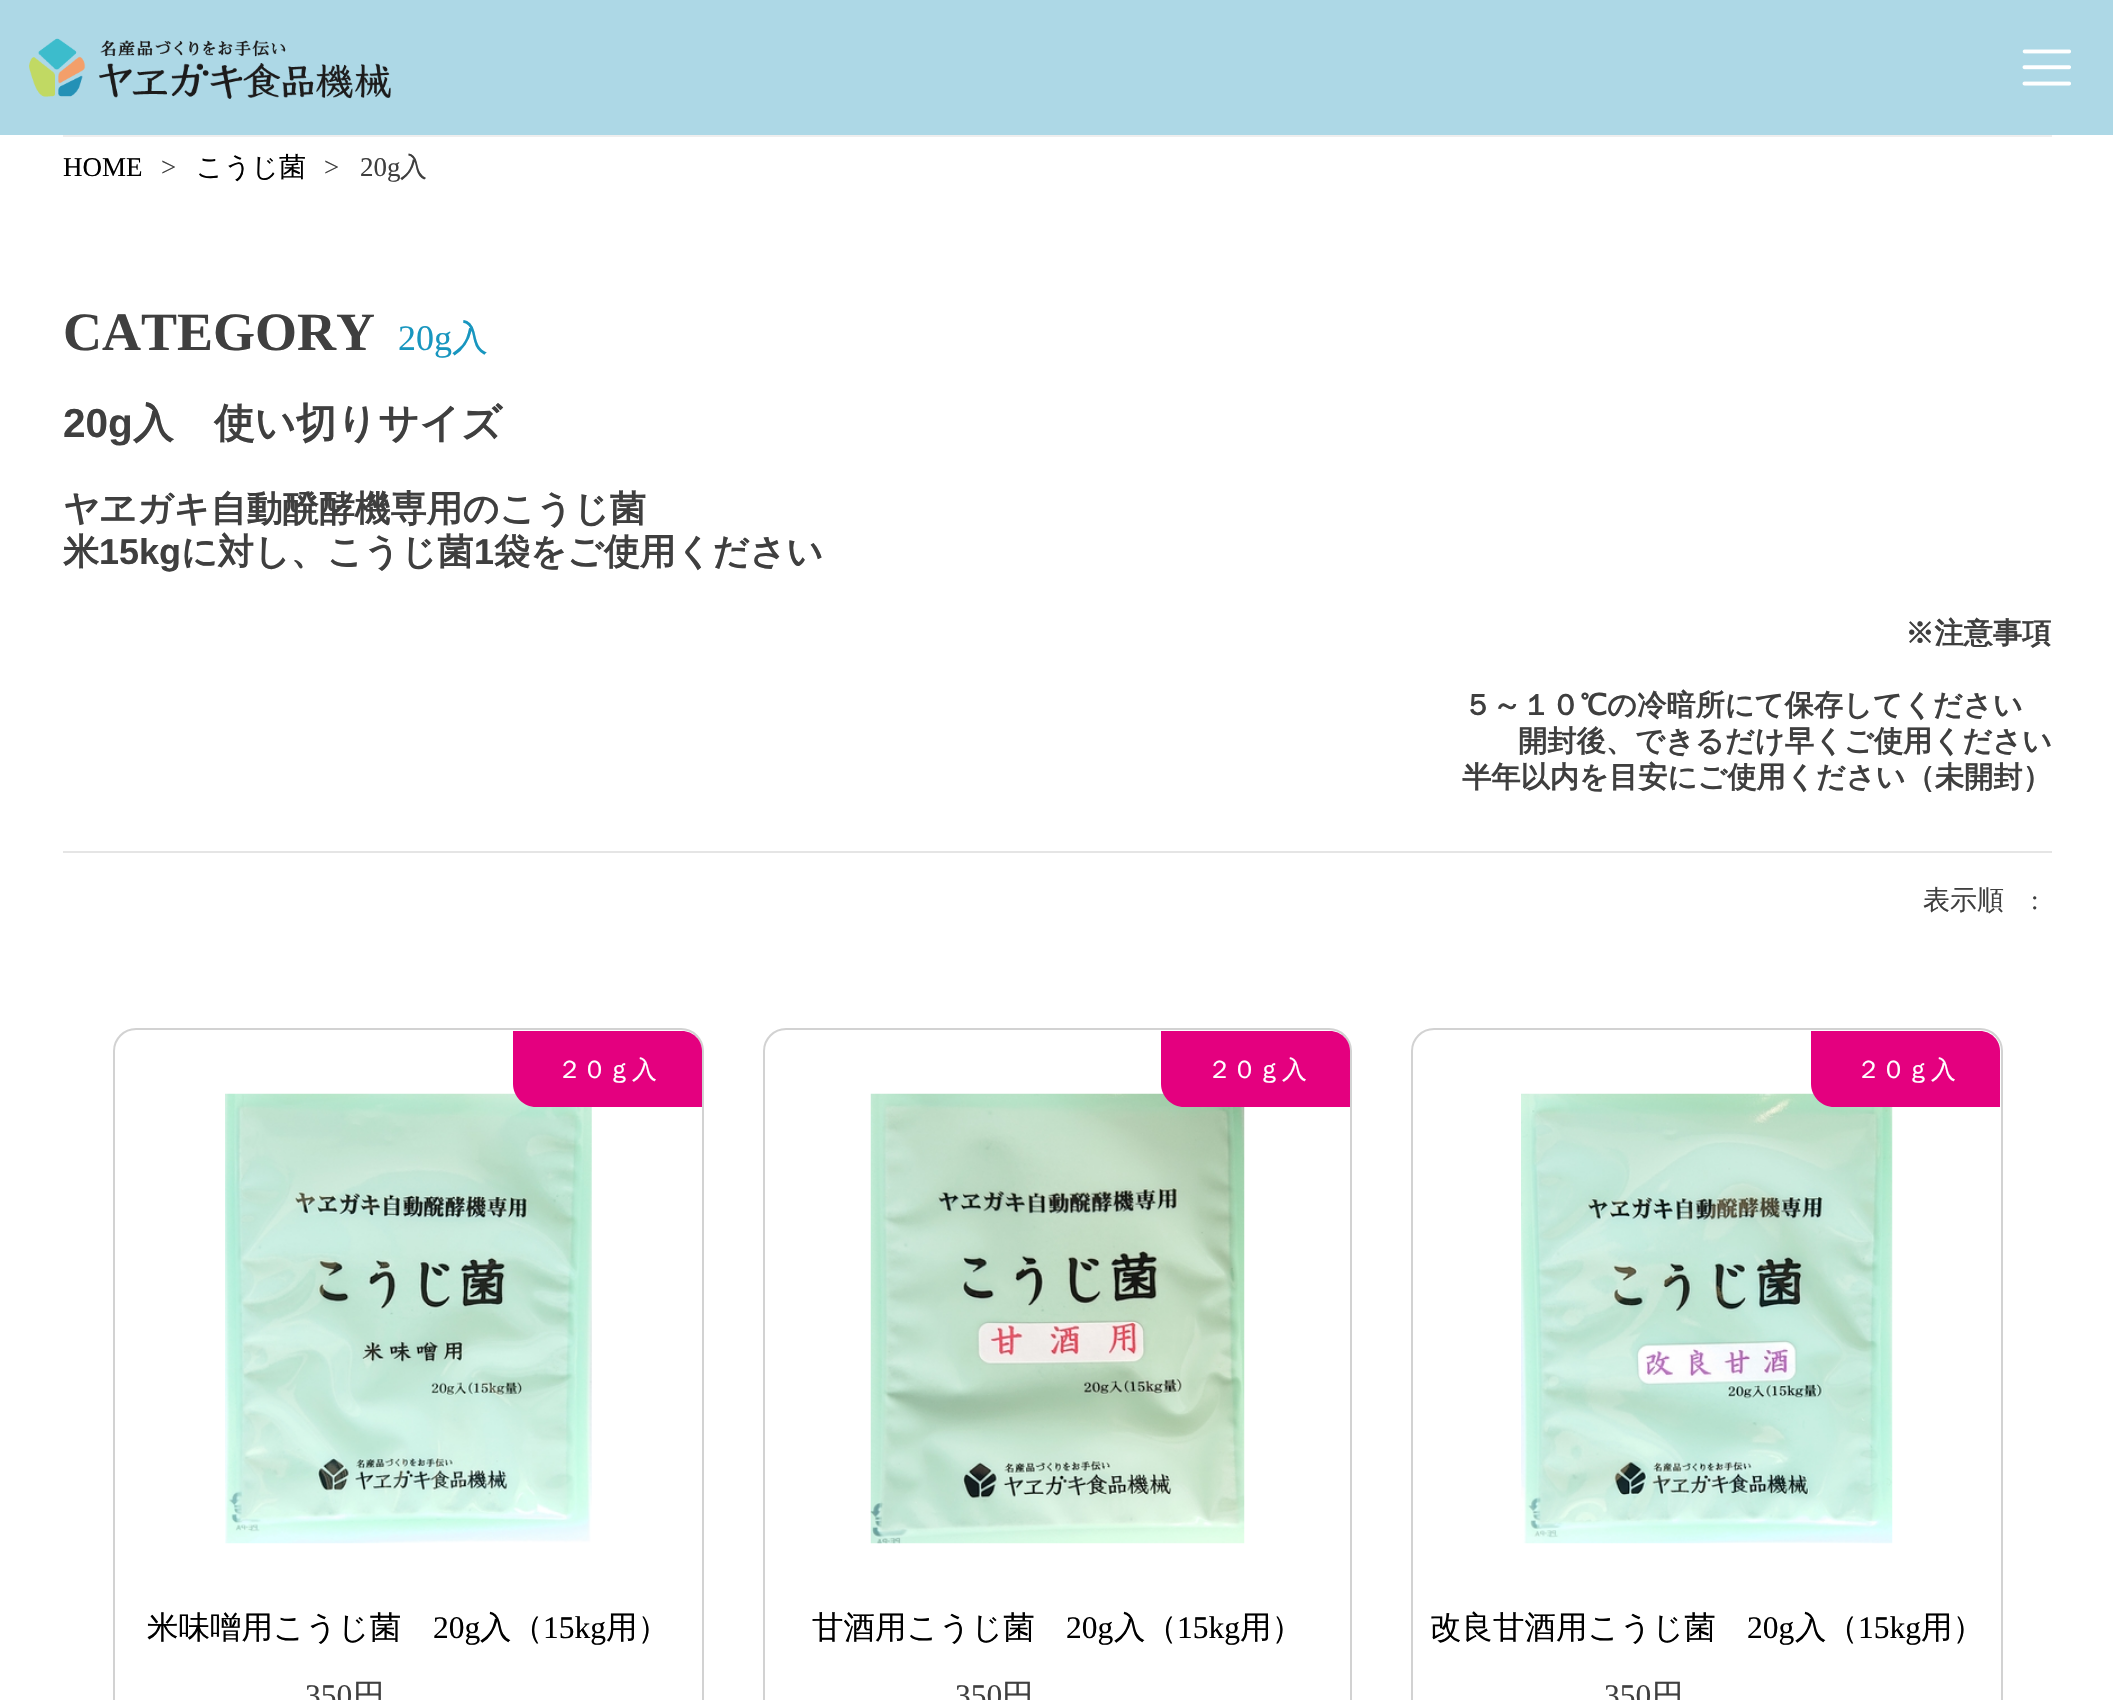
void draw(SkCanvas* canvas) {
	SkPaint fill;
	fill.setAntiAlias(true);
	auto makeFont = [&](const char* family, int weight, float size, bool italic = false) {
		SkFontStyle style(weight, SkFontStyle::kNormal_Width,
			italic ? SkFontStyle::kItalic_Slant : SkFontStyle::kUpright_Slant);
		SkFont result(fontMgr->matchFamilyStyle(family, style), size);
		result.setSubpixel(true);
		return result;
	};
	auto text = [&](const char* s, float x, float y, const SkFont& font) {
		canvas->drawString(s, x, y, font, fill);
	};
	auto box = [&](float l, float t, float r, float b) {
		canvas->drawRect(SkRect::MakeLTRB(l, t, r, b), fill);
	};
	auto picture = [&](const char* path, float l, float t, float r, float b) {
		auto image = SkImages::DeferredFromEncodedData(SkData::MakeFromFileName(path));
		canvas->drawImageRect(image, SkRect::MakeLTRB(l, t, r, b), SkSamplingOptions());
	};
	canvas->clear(0xFFFFFFFF);
	fill.setColor(0xFFADD8E6);
	box(0, 0, 2113, 135);
	picture("image0.png", 29, 38, 391, 99);
	picture("image1.png", 2022, 49, 2071, 86);
	fill.setColor(0xFFEEEEEE);
	box(63, 135, 2052, 137);
	fill.setColor(0xFFE5E5E5);
	box(63, 851, 2052, 853);
	fill.setStyle(SkPaint::kStroke_Style);
	fill.setStrokeWidth(2);
	fill.setColor(0xFFD2D2D2);
	canvas->drawRoundRect(SkRect::MakeLTRB(114, 1029, 703, 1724), 22, 22, fill);
	picture("image2.png", 225, 1093, 592, 1544);
	fill.setStyle(SkPaint::kFill_Style);
	fill.setColor(0xFFE4007F);
	canvas->drawPath(SkPathBuilder().moveTo(513, 1031).lineTo(682, 1031).cubicTo(693, 1031, 702, 1040, 702, 1051).lineTo(702, 1107).lineTo(536, 1107).cubicTo(523.5f, 1107, 513, 1096.5f, 513, 1084).close().detach(), fill);
	fill.setStyle(SkPaint::kStroke_Style);
	fill.setColor(0xFFD2D2D2);
	canvas->drawRoundRect(SkRect::MakeLTRB(764, 1029, 1351, 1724), 22, 22, fill);
	picture("image3.png", 870, 1093, 1245, 1544);
	fill.setStyle(SkPaint::kFill_Style);
	fill.setColor(0xFFE4007F);
	canvas->drawPath(SkPathBuilder().moveTo(1161, 1031).lineTo(1330, 1031).cubicTo(1341, 1031, 1350, 1040, 1350, 1051).lineTo(1350, 1107).lineTo(1184, 1107).cubicTo(1171.5f, 1107, 1161, 1096.5f, 1161, 1084).close().detach(), fill);
	fill.setStyle(SkPaint::kStroke_Style);
	fill.setColor(0xFFD2D2D2);
	canvas->drawRoundRect(SkRect::MakeLTRB(1412, 1029, 2002, 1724), 22, 22, fill);
	picture("image4.png", 1521, 1093, 1893, 1544);
	fill.setStyle(SkPaint::kFill_Style);
	fill.setColor(0xFFE4007F);
	canvas->drawPath(SkPathBuilder().moveTo(1811, 1031).lineTo(1980, 1031).cubicTo(1991, 1031, 2000, 1040, 2000, 1051).lineTo(2000, 1107).lineTo(1834, 1107).cubicTo(1821.5f, 1107, 1811, 1096.5f, 1811, 1084).close().detach(), fill);
	auto font1 = makeFont("Liberation Serif", 400, 27);
	fill.setColor(0xFF000000);
	text("HOME", 63, 176, font1);
	fill.setColor(0xFF3F3F3F);
	text(">", 161, 176, font1);
	auto font2 = makeFont("WenQuanYi Zen Hei", 500, 27);
	fill.setColor(0xFF000000);
	text("こうじ菌", 196, 176, font2);
	fill.setColor(0xFF3F3F3F);
	text(">", 324, 176, font1);
	text("20g", 360, 176, font1);
	text("入", 400, 176, font2);
	auto font3 = makeFont("Liberation Serif", 700, 54);
	text("CATEGORY", 63, 350, font3);
	auto font4 = makeFont("Liberation Serif", 400, 36);
	fill.setColor(0xFF1896BF);
	text("20g", 398, 350, font4);
	auto font5 = makeFont("WenQuanYi Zen Hei", 500, 36);
	text("入", 452, 350, font5);
	auto font6 = makeFont("Liberation Sans", 700, 40.5f);
	fill.setColor(0xFF3F3F3F);
	text("20g", 63, 437, font6);
	auto font7 = makeFont("WenQuanYi Zen Hei", 700, 40.5f);
	text("入　使い切りサイズ", 133, 437, font7);
	auto font8 = makeFont("WenQuanYi Zen Hei", 700, 36);
	text("ヤヱガキ自動醗酵機専用のこうじ菌", 63, 521, font8);
	text("米", 63, 564, font8);
	auto font9 = makeFont("Liberation Sans", 700, 36);
	text("15kg", 99, 564, font9);
	text("に対し、こうじ菌", 181, 564, font8);
	text("1", 474, 564, font9);
	text("袋をご使用ください", 494, 564, font8);
	auto font10 = makeFont("WenQuanYi Zen Hei", 700, 29.25f);
	text("※注意事項", 1905, 643, font10);
	text("５～１０℃の冷暗所にて保存してください", 1463, 715, font10);
	text("開封後、できるだけ早くご使用ください", 1518, 751, font10);
	text("半年以内を目安にご使用ください（未開封）", 1462, 787, font10);
	text("表示順", 1923, 909, font2);
	text(":", 2031, 909, font1);
	auto font11 = makeFont("WenQuanYi Zen Hei", 500, 25);
	fill.setColor(0xFFFFFFFF);
	text("２０ｇ入", 557, 1078, font11);
	auto font12 = makeFont("WenQuanYi Zen Hei", 500, 31.5f);
	fill.setColor(0xFF000000);
	text("米味噌用こうじ菌", 147, 1638, font12);
	auto font13 = makeFont("Liberation Serif", 400, 31.5f);
	text("20g", 433, 1638, font13);
	text("入（", 480, 1638, font12);
	text("15kg", 543, 1638, font13);
	text("用）", 606, 1638, font12);
	fill.setColor(0xFF3F3F3F);
	text("350", 305, 1706, font13);
	text("円", 353, 1706, font12);
	fill.setColor(0xFFFFFFFF);
	text("２０ｇ入", 1207, 1078, font11);
	fill.setColor(0xFF000000);
	text("甘酒用こうじ菌", 812, 1638, font12);
	text("20g", 1066, 1638, font13);
	text("入（", 1114, 1638, font12);
	text("15kg", 1177, 1638, font13);
	text("用）", 1240, 1638, font12);
	fill.setColor(0xFF3F3F3F);
	text("350", 955, 1706, font13);
	text("円", 1002, 1706, font12);
	fill.setColor(0xFFFFFFFF);
	text("２０ｇ入", 1856, 1078, font11);
	fill.setColor(0xFF000000);
	text("改良甘酒用こうじ菌", 1430, 1638, font12);
	text("20g", 1747, 1638, font13);
	text("入（", 1795, 1638, font12);
	text("15kg", 1858, 1638, font13);
	text("用）", 1921, 1638, font12);
	fill.setColor(0xFF3F3F3F);
	text("350", 1604, 1706, font13);
	text("円", 1652, 1706, font12);
}
